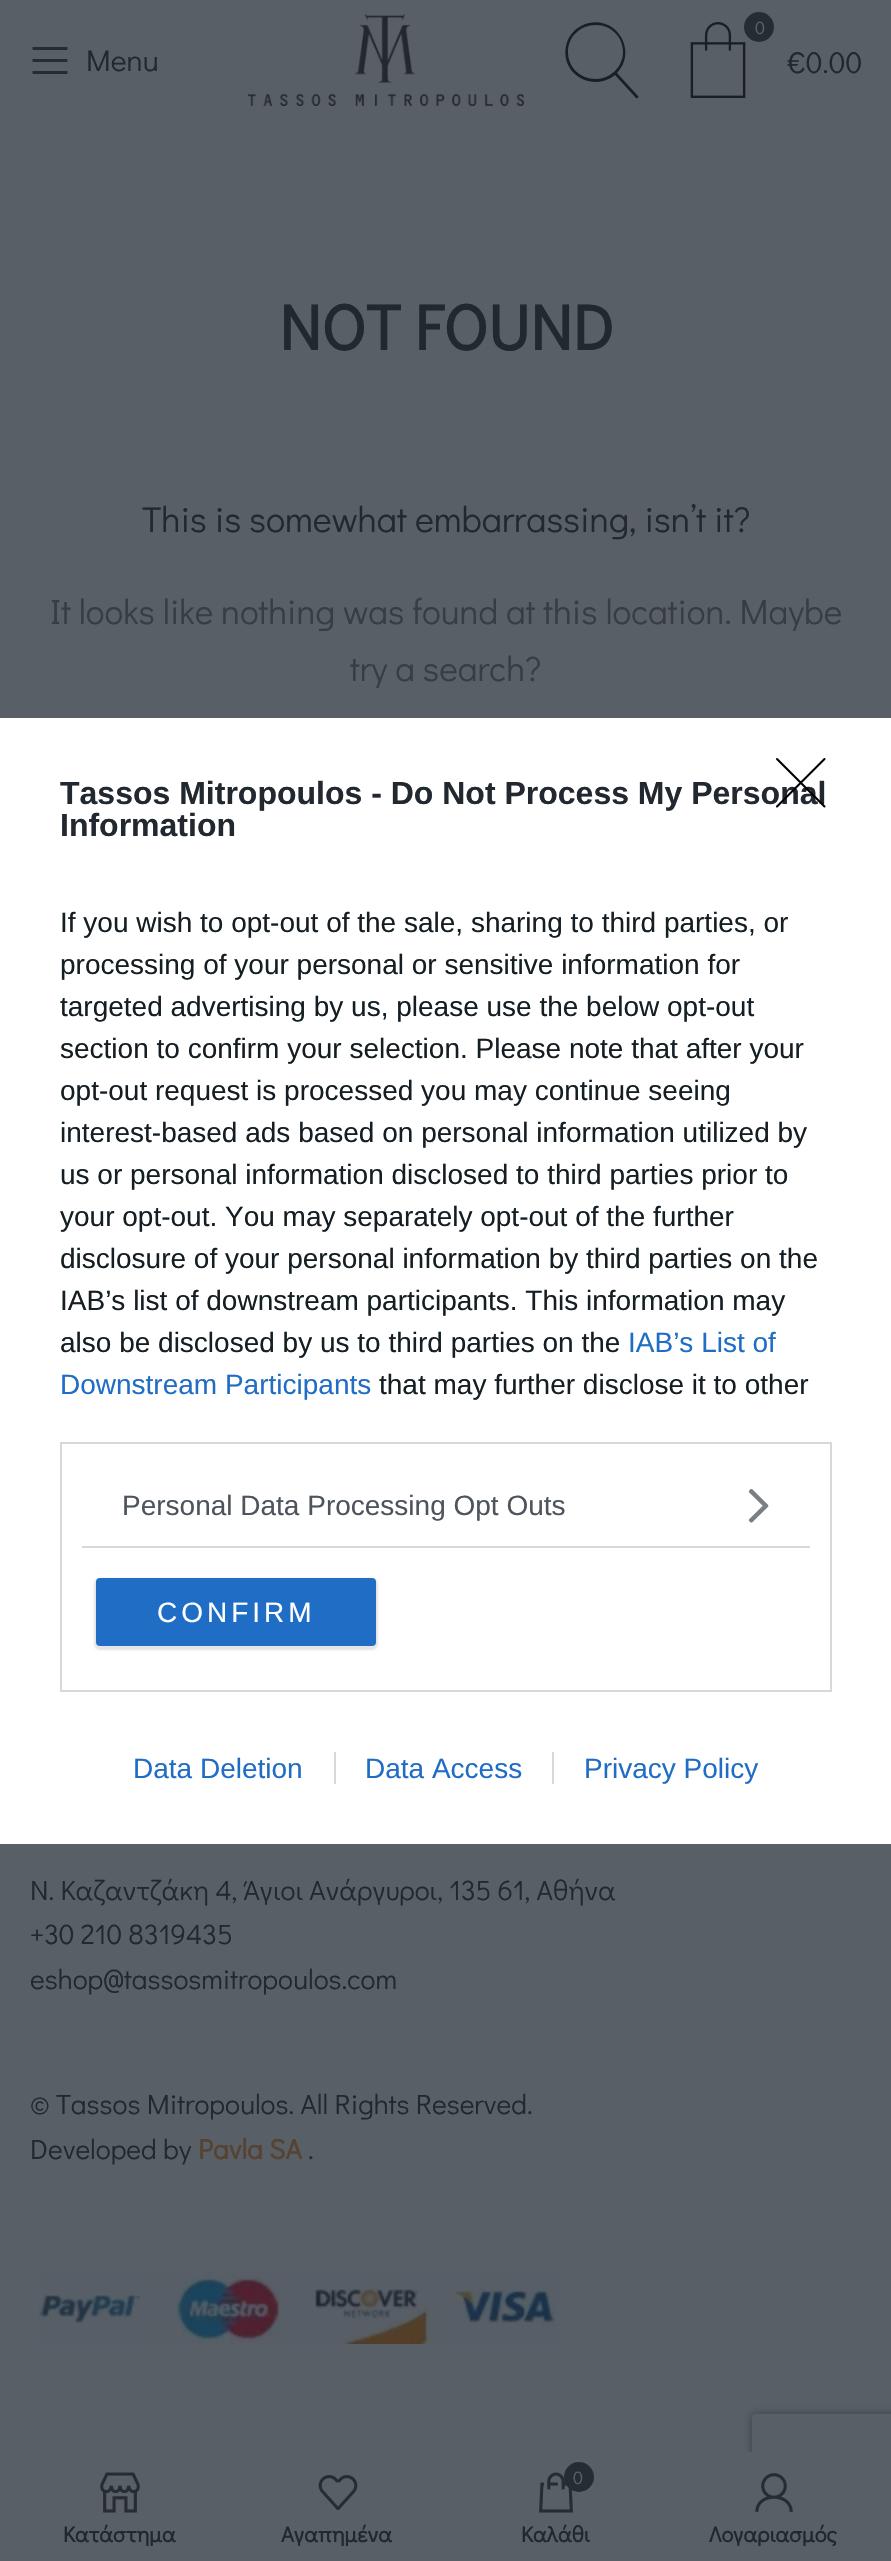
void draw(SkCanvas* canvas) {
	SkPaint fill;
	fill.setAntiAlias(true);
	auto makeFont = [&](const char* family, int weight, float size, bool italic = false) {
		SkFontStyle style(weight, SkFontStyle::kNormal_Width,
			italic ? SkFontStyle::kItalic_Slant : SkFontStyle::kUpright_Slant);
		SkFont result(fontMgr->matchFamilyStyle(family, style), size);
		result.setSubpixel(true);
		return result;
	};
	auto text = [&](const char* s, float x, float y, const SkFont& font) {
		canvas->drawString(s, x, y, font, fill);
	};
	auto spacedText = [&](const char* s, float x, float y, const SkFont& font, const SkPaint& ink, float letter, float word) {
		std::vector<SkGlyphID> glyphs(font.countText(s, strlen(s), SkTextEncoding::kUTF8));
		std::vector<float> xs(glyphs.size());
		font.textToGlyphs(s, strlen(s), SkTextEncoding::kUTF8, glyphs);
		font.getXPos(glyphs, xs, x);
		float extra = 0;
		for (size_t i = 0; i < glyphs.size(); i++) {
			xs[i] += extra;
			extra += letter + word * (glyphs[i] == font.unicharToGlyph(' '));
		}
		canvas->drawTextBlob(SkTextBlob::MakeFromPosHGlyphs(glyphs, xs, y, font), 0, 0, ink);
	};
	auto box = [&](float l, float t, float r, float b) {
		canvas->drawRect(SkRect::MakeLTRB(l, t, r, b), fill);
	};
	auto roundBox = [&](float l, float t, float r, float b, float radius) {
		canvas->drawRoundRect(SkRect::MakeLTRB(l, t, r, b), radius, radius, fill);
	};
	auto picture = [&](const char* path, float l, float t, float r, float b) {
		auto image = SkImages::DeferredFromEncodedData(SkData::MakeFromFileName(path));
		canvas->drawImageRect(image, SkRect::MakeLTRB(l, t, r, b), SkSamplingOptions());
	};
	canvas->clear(0xFF595F67);
	fill.setColor(0xFF262C34);
	canvas->drawPath(SkPathBuilder().moveTo(32.5f, 50).lineTo(67.5f, 50).lineTo(67.5f, 47).lineTo(32.5f, 47).close().moveTo(32.5f, 62).lineTo(67.5f, 62).lineTo(67.5f, 59).lineTo(32.5f, 59).close().moveTo(32.5f, 74).lineTo(67.5f, 74).lineTo(67.5f, 71).lineTo(32.5f, 71).close().detach(), fill);
	picture("image0.png", 248, 14, 524, 106);
	fill.setColor(0xFF191F27);
	canvas->drawPath(SkPathBuilder(SkPathFillType::kEvenOdd).moveTo(638, 96).lineTo(617, 73).cubicTo(637, 53, 619, 17, 589, 23).cubicTo(584, 24, 578, 27, 574, 31).cubicTo(570, 35, 567, 40, 566, 46).cubicTo(560, 74, 593, 93, 615, 75).lineTo(636, 98).cubicTo(638, 99, 639, 97, 638, 96).close().moveTo(596, 79).cubicTo(580, 79, 568, 67, 568, 52).cubicTo(568, 37, 580, 25, 596, 25).cubicTo(611, 25, 623, 37, 623, 52).cubicTo(623, 67, 610, 79, 596, 79).close().detach(), fill);
	picture("image1.png", 690, 22, 746, 98);
	fill.setColor(0xFF262C34);
	canvas->drawCircle(759, 27, 15, fill);
	picture("image2.png", 38, 2272, 558, 2344);
	fill.setColor(0xFFFFFFFF);
	box(0, 718, 891, 1844);
	fill.setStyle(SkPaint::kStroke_Style);
	fill.setStrokeWidth(2);
	fill.setColor(0xFFD8D8D8);
	canvas->drawRect(SkRect::MakeLTRB(61, 1443, 831, 1691), fill);
	fill.setStyle(SkPaint::kFill_Style);
	box(82, 1546, 810, 1548);
	picture("image3.png", 748, 1489, 769, 1523);
	fill.setColor(0x1A000000);
	fill.setMaskFilter(SkMaskFilter::MakeBlur(kNormal_SkBlurStyle, 1));
	canvas->drawRoundRect(SkRect::MakeLTRB(94, 1578, 378, 1650), 6, 6, fill);
	fill.setMaskFilter(nullptr);
	fill.setColor(0xFF206DC5);
	roundBox(96, 1578, 376, 1646, 4);
	fill.setColor(0xFFD8D8D8);
	box(334, 1752, 336, 1784);
	box(552, 1752, 554, 1784);
	canvas->save();
	canvas->clipPath(SkPathBuilder(SkPathFillType::kEvenOdd).moveTo(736, 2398).lineTo(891, 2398).lineTo(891, 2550).lineTo(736, 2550).close().moveTo(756, 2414).lineTo(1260, 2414).cubicTo(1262, 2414, 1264, 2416, 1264, 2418).lineTo(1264, 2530).cubicTo(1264, 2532, 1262, 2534, 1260, 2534).lineTo(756, 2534).cubicTo(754, 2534, 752, 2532, 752, 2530).lineTo(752, 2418).cubicTo(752, 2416, 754, 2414, 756, 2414).close().detach(), true);
	fill.setColor(0xFF393F47);
	fill.setMaskFilter(SkMaskFilter::MakeBlur(kNormal_SkBlurStyle, 5));
	canvas->drawRoundRect(SkRect::MakeLTRB(752, 2414, 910, 2534), 4, 4, fill);
	fill.setMaskFilter(nullptr);
	canvas->restore();
	fill.setColor(0xFF595F67);
	box(745, 2452, 891, 2541);
	picture("image4.png", 100, 2472, 140, 2513);
	picture("image5.png", 318, 2475, 358, 2510);
	picture("image6.png", 539, 2472, 573, 2513);
	fill.setColor(0xFF262C34);
	canvas->drawCircle(579, 2477, 15, fill);
	picture("image7.png", 755, 2473, 793, 2512);
	auto font1 = makeFont("Didact Gothic", 400, 30);
	fill.setColor(0xFF222830);
	text("Menu", 86, 71, font1);
	auto font2 = makeFont("Didact Gothic", 400, 18);
	fill.setColor(0xFF595F67);
	text("0", 755, 34, font2);
	fill.setColor(0xFF222830);
	text("€0.00", 787, 73, font1);
	auto font3 = makeFont("Didact Gothic", 700, 64);
	text("NOT FOUND", 279, 350, font3);
	auto font4 = makeFont("Didact Gothic", 400, 36);
	text("This is somewhat embarrassing, isn’t it?", 142, 532, font4);
	auto font5 = makeFont("Didact Gothic", 400, 35.2f);
	fill.setColor(0xFF373D45);
	text("It looks like nothing was found at this location. Maybe", 50, 624, font5);
	text("try a search?", 350, 681, font5);
	auto font6 = makeFont("Didact Gothic", 400, 28);
	fill.setColor(0xFF222830);
	text("Ν. Καζαντζάκη 4, Άγιοι Ανάργυροι, 135 61, Αθήνα", 30, 1900, font6);
	text("+30 210 8319435", 30, 1944, font6);
	text("eshop@tassosmitropoulos.com", 30, 1989, font6);
	text("© Tassos Mitropoulos. All Rights Reserved.", 30, 2114, font6);
	text("Developed by", 30, 2159, font6);
	auto font7 = makeFont("Didact Gothic", 700, 28);
	fill.setColor(0xFF554334);
	text("Pavla SA", 198, 2159, font7);
	fill.setColor(0xFF222830);
	text(".", 308, 2159, font6);
	auto font8 = makeFont("Liberation Sans", 700, 32);
	text("Tassos Mitropoulos - Do Not Process My Personal", 60, 804, font8);
	fill.setStyle(SkPaint::kStroke_Style);
	fill.setStrokeWidth(2.1f);
	fill.setStrokeCap(SkPaint::kRound_Cap);
	fill.setStrokeJoin(SkPaint::kRound_Join);
	fill.setColor(0xFF000000);
	canvas->drawPath(SkPathBuilder().moveTo(777, 759).lineTo(824.5f, 806.5f).moveTo(824.5f, 759).lineTo(777, 806.5f).detach(), fill);
	fill.setStyle(SkPaint::kFill_Style);
	fill.setColor(0xFF222830);
	text("Information", 60, 836, font8);
	auto font9 = makeFont("Liberation Sans", 400, 28);
	fill.setColor(0xFF141E23);
	text("If you wish to opt-out of the sale, sharing to third parties, or", 60, 932, font9);
	text("processing of your personal or sensitive information for", 60, 974, font9);
	text("targeted advertising by us, please use the below opt-out", 60, 1016, font9);
	text("section to confirm your selection. Please note that after your", 60, 1058, font9);
	text("opt-out request is processed you may continue seeing", 60, 1100, font9);
	text("interest-based ads based on personal information utilized by", 60, 1142, font9);
	text("us or personal information disclosed to third parties prior to", 60, 1184, font9);
	text("your opt-out. You may separately opt-out of the further", 60, 1226, font9);
	text("disclosure of your personal information by third parties on the", 60, 1268, font9);
	text("IAB’s list of downstream participants. This information may", 60, 1310, font9);
	text("also be disclosed by us to third parties on the", 60, 1352, font9);
	fill.setColor(0xFF206DC5);
	text("IAB’s List of", 628, 1352, font9);
	text("Downstream Participants", 60, 1394, font9);
	fill.setColor(0xFF141E23);
	text("that may further disclose it to other", 379, 1394, font9);
	fill.setColor(0xFF4D545D);
	text("Personal Data Processing Opt Outs", 122, 1515, font9);
	fill.setColor(0xFFFFFFFF);
	spacedText("CONFIRM", 157, 1622, font9, fill, 4, 0);
	fill.setColor(0xFF206DC5);
	text("Data Deletion", 133, 1778, font9);
	text("Data Access", 365, 1778, font9);
	text("Privacy Policy", 584, 1778, font9);
	canvas->save();
	canvas->clipRect(SkRect::MakeLTRB(30, 2520, 208, 2546));
	auto font10 = makeFont("Didact Gothic", 700, 22);
	fill.setColor(0xFF222830);
	text("Κατάστημα", 63, 2542, font10);
	canvas->restore();
	canvas->save();
	canvas->clipRect(SkRect::MakeLTRB(248, 2520, 426, 2546));
	text("Αγαπημένα", 281, 2542, font10);
	canvas->restore();
	fill.setColor(0xFF595F67);
	text("0", 573, 2484, font2);
	fill.setColor(0xFF222830);
	text("Καλάθι", 521, 2542, font10);
	canvas->save();
	canvas->clipRect(SkRect::MakeLTRB(684, 2520, 862, 2546));
	text("Λογαριασμός", 709, 2542, font10);
	canvas->restore();
}
